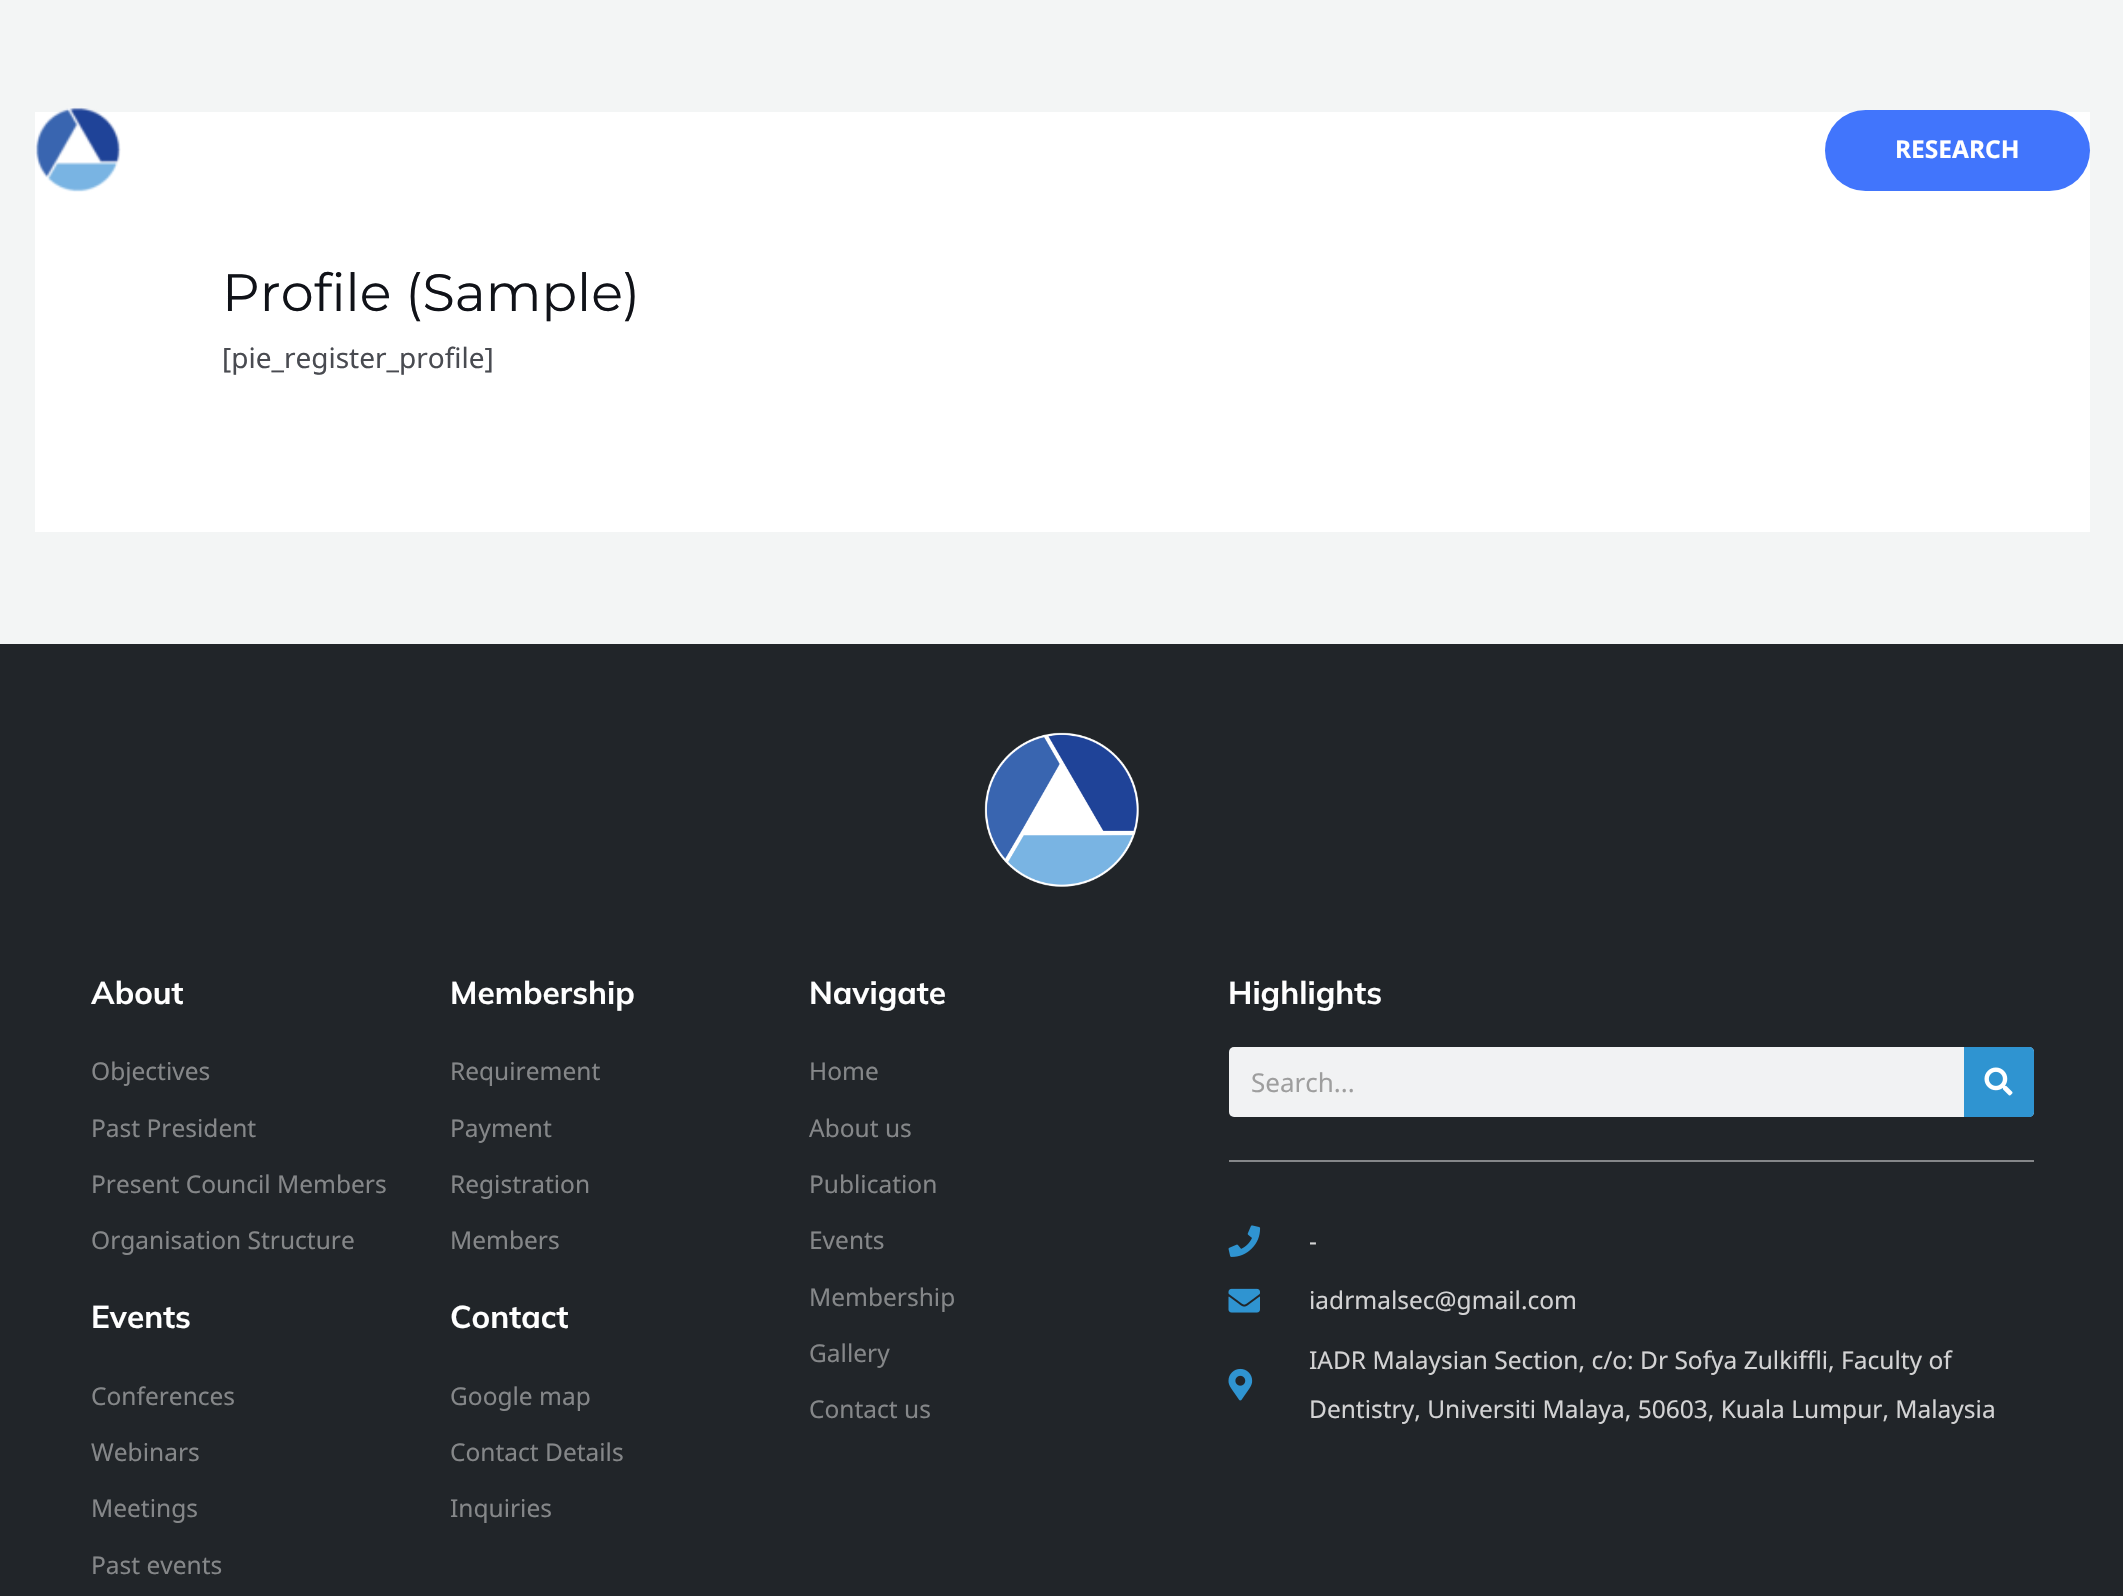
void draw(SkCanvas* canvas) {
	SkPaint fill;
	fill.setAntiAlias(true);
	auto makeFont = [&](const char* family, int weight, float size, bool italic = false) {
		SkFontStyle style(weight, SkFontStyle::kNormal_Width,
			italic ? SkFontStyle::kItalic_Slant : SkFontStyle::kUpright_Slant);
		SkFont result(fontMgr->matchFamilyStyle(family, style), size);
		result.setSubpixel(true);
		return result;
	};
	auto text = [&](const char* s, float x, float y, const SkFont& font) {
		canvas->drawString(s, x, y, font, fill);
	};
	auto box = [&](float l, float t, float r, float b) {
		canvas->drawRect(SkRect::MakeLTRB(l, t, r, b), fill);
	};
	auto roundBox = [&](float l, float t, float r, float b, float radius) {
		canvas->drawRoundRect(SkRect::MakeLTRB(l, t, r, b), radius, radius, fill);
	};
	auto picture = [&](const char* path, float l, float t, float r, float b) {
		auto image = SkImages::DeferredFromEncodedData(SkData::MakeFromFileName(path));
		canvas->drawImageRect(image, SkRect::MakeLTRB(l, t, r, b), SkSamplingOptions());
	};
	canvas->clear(0xFFF3F5F5);
	fill.setColor(0xFFFFFFFF);
	box(35, 112, 2090, 532);
	picture("image0.png", 35, 107, 121, 192);
	fill.setColor(0xFF4175FC);
	roundBox(1825, 110, 2090, 191, 40.5f);
	fill.setColor(0xFF212529);
	box(0, 644, 2123, 1596);
	picture("image1.png", 984, 732, 1139, 887);
	fill.setColor(0xFFF1F2F3);
	roundBox(1229, 1047, 2034, 1117, 5);
	fill.setColor(0xFF2F94D1);
	canvas->drawPath(SkPathBuilder().moveTo(1964, 1047).lineTo(2029, 1047).cubicTo(2032, 1047, 2034, 1049, 2034, 1052).lineTo(2034, 1112).cubicTo(2034, 1115, 2032, 1117, 2029, 1117).lineTo(1964, 1117).close().detach(), fill);
	picture("image2.png", 1984, 1067, 2013, 1096);
	fill.setColor(0xFF858789);
	box(1229, 1160, 2034, 1162);
	picture("image3.png", 1228, 1225, 1261, 1257);
	picture("image4.png", 1228, 1288, 1260, 1313);
	picture("image5.png", 1228, 1368, 1253, 1401);
	auto font1 = makeFont("Noto Sans", 700, 24.5f);
	fill.setColor(0xFFFFFFFF);
	text("RESEARCH", 1895, 158, font1);
	auto font2 = makeFont("Montserrat", 400, 52.5f);
	fill.setColor(0xFF101218);
	text("Profile (Sample)", 222, 311, font2);
	auto font3 = makeFont("Noto Sans", 400, 28);
	fill.setColor(0xFF494B51);
	text("[pie_register_profile]", 222, 368, font3);
	auto font4 = makeFont("Mulish", 700, 31.5f);
	fill.setColor(0xFFFFFFFF);
	text("About", 91, 1004, font4);
	auto font5 = makeFont("Noto Sans", 400, 24.5f);
	fill.setColor(0xFF858789);
	text("Objectives", 91, 1080, font5);
	text("Past President", 91, 1137, font5);
	text("Present Council Members", 91, 1193, font5);
	text("Organisation Structure", 91, 1249, font5);
	fill.setColor(0xFFFFFFFF);
	text("Events", 91, 1328, font4);
	fill.setColor(0xFF858789);
	text("Conferences", 91, 1405, font5);
	text("Webinars", 91, 1461, font5);
	text("Meetings", 91, 1517, font5);
	text("Past events", 91, 1574, font5);
	fill.setColor(0xFFFFFFFF);
	text("Membership", 450, 1004, font4);
	fill.setColor(0xFF858789);
	text("Requirement", 450, 1080, font5);
	text("Payment", 450, 1137, font5);
	text("Registration", 450, 1193, font5);
	text("Members", 450, 1249, font5);
	fill.setColor(0xFFFFFFFF);
	text("Contact", 450, 1328, font4);
	fill.setColor(0xFF858789);
	text("Google map", 450, 1405, font5);
	text("Contact Details", 450, 1461, font5);
	text("Inquiries", 450, 1517, font5);
	fill.setColor(0xFFFFFFFF);
	text("Navigate", 809, 1004, font4);
	fill.setColor(0xFF858789);
	text("Home", 809, 1080, font5);
	text("About us", 809, 1137, font5);
	text("Publication", 809, 1193, font5);
	text("Events", 809, 1249, font5);
	text("Membership", 809, 1306, font5);
	text("Gallery", 809, 1362, font5);
	text("Contact us", 809, 1418, font5);
	fill.setColor(0xFFFFFFFF);
	text("Highlights", 1228, 1004, font4);
	auto font6 = makeFont("Noto Sans", 400, 26);
	fill.setColor(0xFF9E9E9E);
	text("Search...", 1251, 1092, font6);
	fill.setColor(0xFFD3D3D4);
	text("-", 1309, 1250, font5);
	text("iadrmalsec@gmail.com", 1309, 1309, font5);
	text("IADR Malaysian Section, c/o: Dr Sofya Zulkiffli, Faculty of", 1309, 1369, font5);
	text("Dentistry, Universiti Malaya, 50603, Kuala Lumpur, Malaysia", 1309, 1418, font5);
}
